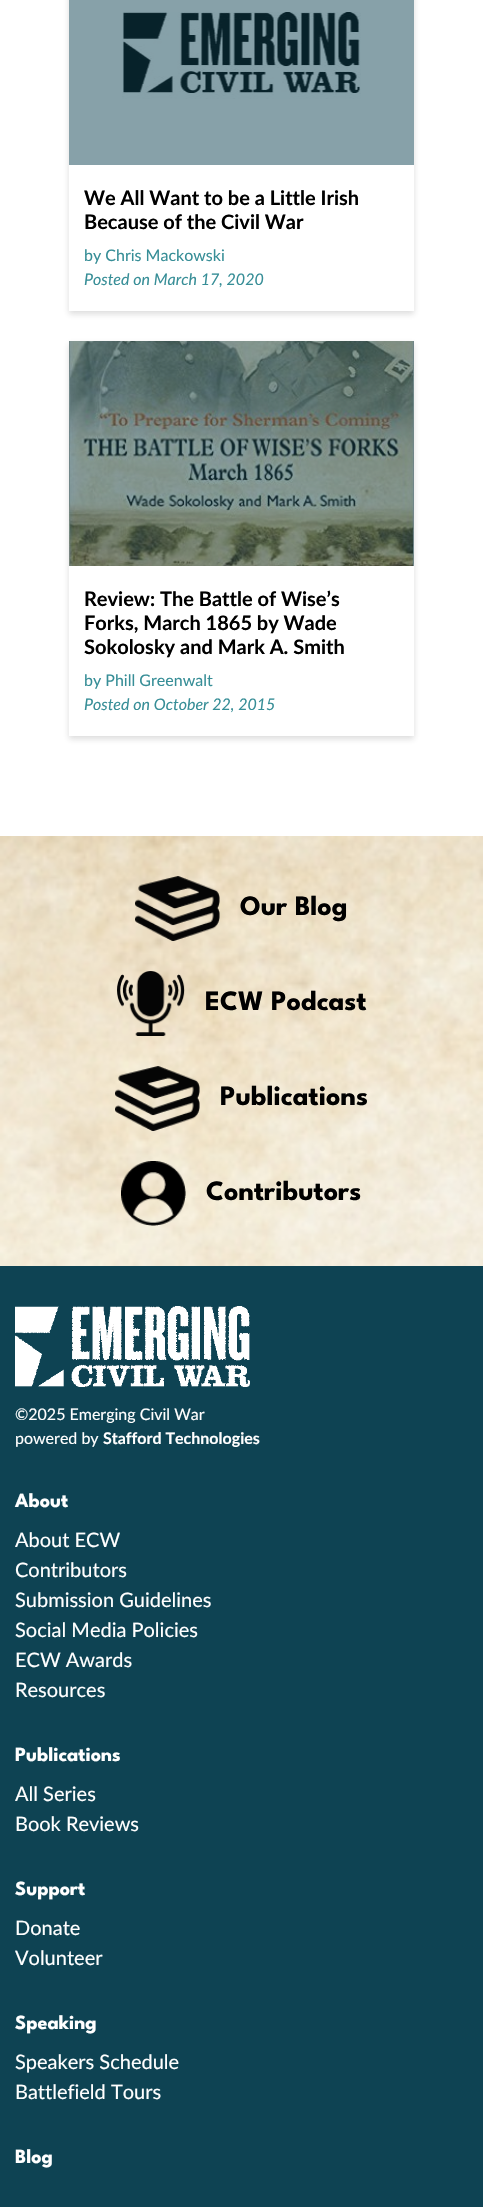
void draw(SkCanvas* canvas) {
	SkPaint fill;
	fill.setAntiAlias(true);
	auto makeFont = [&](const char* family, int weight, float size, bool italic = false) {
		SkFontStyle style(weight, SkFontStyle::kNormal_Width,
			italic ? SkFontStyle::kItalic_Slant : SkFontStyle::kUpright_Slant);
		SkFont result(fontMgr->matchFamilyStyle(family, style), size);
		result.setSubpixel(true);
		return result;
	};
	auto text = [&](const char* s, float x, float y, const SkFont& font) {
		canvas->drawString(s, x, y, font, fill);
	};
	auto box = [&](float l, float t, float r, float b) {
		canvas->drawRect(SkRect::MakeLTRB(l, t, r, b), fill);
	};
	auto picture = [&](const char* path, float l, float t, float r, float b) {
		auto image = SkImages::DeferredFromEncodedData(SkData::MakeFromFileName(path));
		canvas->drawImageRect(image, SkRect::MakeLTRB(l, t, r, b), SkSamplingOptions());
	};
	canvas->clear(0xFFFFFFFF);
	fill.setColor(0xFF87A1A9);
	box(69, 0, 414, 165);
	canvas->save();
	canvas->clipPath(SkPathBuilder(SkPathFillType::kEvenOdd).moveTo(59, 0).lineTo(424, 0).lineTo(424, 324).lineTo(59, 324).close().moveTo(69, -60).lineTo(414, -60).lineTo(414, 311).lineTo(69, 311).close().detach(), true);
	fill.setColor(0x29252525);
	fill.setMaskFilter(SkMaskFilter::MakeBlur(kNormal_SkBlurStyle, 3));
	canvas->drawRect(SkRect::MakeLTRB(69, -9, 414, 314), fill);
	fill.setMaskFilter(nullptr);
	canvas->restore();
	picture("image0.png", 122, 12, 361, 99);
	canvas->save();
	canvas->clipPath(SkPathBuilder(SkPathFillType::kEvenOdd).moveTo(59, 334).lineTo(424, 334).lineTo(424, 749).lineTo(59, 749).close().moveTo(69, 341).lineTo(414, 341).lineTo(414, 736).lineTo(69, 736).close().detach(), true);
	fill.setMaskFilter(SkMaskFilter::MakeBlur(kNormal_SkBlurStyle, 3));
	canvas->drawRect(SkRect::MakeLTRB(69, 344, 414, 739), fill);
	fill.setMaskFilter(nullptr);
	canvas->restore();
	picture("image1.png", 69, 341, 414, 566);
	picture("image2.png", 0, 836, 483, 1266);
	picture("image3.png", 135, 876, 220, 941);
	picture("image4.png", 117, 971, 185, 1036);
	picture("image5.png", 115, 1066, 200, 1131);
	picture("image6.png", 121, 1161, 186, 1226);
	fill.setColor(0xFF0E4353);
	box(0, 1266, 483, 2207);
	picture("image7.png", 15, 1306, 250, 1387);
	auto font1 = makeFont("Lato", 700, 20);
	fill.setColor(0xFF000000);
	text("We All Want to be a Little Irish", 84, 205, font1);
	text("Because of the Civil War", 84, 229, font1);
	auto font2 = makeFont("Lato", 400, 16);
	fill.setColor(0xFF378E97);
	text("by Chris Mackowski", 84, 261, font2);
	auto font3 = makeFont("Lato", 400, 16, true);
	text("Posted on March 17, 2020", 84, 285, font3);
	fill.setColor(0xFF000000);
	text("Review: The Battle of Wise’s", 84, 606, font1);
	text("Forks, March 1865 by Wade", 84, 630, font1);
	text("Sokolosky and Mark A. Smith", 84, 654, font1);
	fill.setColor(0xFF378E97);
	text("by Phill Greenwalt", 84, 686, font2);
	text("Posted on October 22, 2015", 84, 710, font3);
	auto font4 = makeFont("League Spartan", 700, 28);
	fill.setColor(0xFF000000);
	text("Our Blog", 240, 915, font4);
	text("ECW Podcast", 205, 1010, font4);
	text("Publications", 220, 1105, font4);
	text("Contributors", 206, 1200, font4);
	fill.setColor(0xFFFFFFFF);
	text("©2025 Emerging Civil War", 15, 1420, font2);
	text("powered by", 15, 1444, font2);
	auto font5 = makeFont("Lato", 700, 16);
	text("Stafford Technologies", 103, 1444, font5);
	auto font6 = makeFont("League Spartan", 700, 20);
	text("About", 15, 1507, font6);
	auto font7 = makeFont("Lato", 400, 20);
	text("About ECW", 15, 1547, font7);
	text("Contributors", 15, 1577, font7);
	text("Submission Guidelines", 15, 1607, font7);
	text("Social Media Policies", 15, 1637, font7);
	text("ECW Awards", 15, 1667, font7);
	text("Resources", 15, 1697, font7);
	text("Publications", 15, 1761, font6);
	text("All Series", 15, 1801, font7);
	text("Book Reviews", 15, 1831, font7);
	text("Support", 15, 1895, font6);
	text("Donate", 15, 1935, font7);
	text("Volunteer", 15, 1965, font7);
	text("Speaking", 15, 2029, font6);
	text("Speakers Schedule", 15, 2069, font7);
	text("Battlefield Tours", 15, 2099, font7);
	text("Blog", 15, 2163, font6);
}
